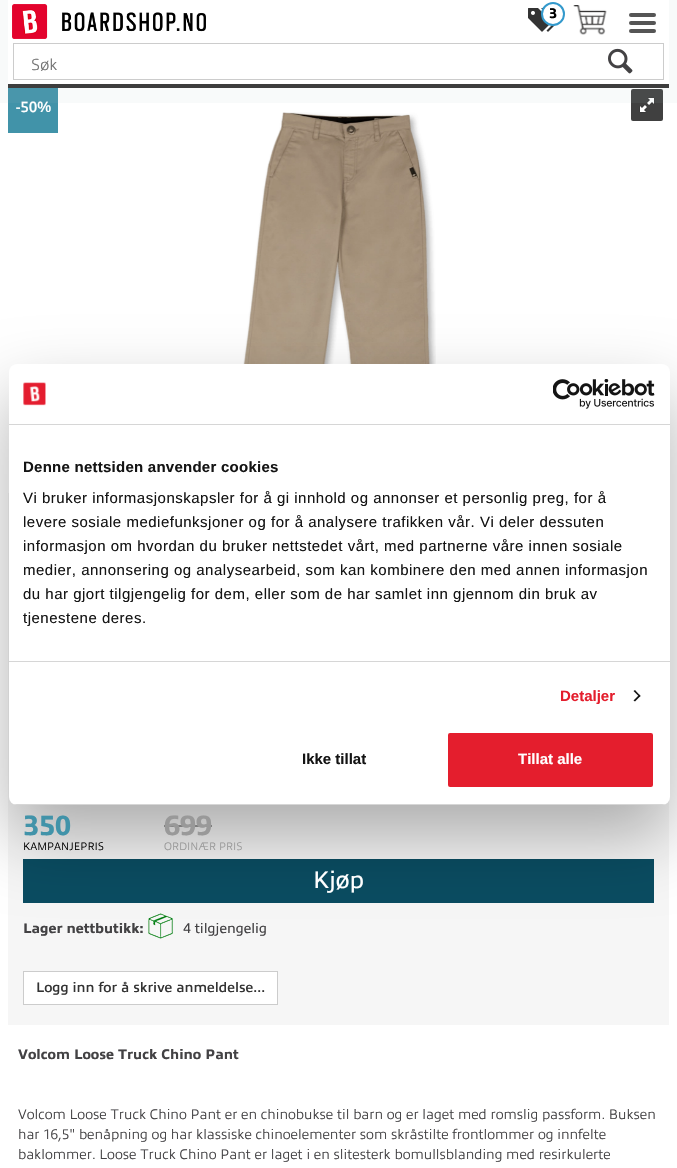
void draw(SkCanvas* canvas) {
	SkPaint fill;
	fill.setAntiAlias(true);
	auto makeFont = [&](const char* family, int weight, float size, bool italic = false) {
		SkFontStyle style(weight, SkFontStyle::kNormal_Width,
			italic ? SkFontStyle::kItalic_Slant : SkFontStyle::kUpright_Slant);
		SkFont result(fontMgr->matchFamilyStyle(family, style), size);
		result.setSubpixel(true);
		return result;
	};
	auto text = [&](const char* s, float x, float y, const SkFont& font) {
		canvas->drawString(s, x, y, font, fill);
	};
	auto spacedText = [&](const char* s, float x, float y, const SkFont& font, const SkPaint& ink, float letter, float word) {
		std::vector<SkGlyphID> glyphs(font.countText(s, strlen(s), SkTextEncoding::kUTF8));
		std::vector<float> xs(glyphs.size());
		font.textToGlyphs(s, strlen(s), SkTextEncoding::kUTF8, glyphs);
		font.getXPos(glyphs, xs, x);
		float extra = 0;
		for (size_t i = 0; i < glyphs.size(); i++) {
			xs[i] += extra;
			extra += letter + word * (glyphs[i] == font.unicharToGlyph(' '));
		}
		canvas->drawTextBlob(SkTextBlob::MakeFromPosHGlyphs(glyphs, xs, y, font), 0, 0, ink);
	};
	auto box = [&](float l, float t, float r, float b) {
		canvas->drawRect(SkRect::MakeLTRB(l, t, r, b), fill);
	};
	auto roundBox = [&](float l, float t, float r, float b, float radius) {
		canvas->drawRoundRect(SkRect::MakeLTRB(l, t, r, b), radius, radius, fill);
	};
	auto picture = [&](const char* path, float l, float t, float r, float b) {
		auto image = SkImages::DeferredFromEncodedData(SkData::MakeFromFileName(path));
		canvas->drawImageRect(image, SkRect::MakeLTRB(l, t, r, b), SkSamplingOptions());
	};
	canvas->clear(0xFFFFFFFF);
	fill.setColor(0xFF4193A9);
	box(8, 88, 58, 133);
	fill.setColor(0xFF404040);
	roundBox(631, 89, 663, 121, 2);
	picture("image4.png", 639, 97, 655, 113);
	fill.setColor(0x14AAC1BF);
	box(0, 0, 677, 103);
	fill.setColor(0xFFFFFFFF);
	box(8, 0, 669, 84);
	fill.setColor(0xFF3D3D3D);
	box(8, 84, 669, 88);
	picture("image0.png", 12, 4, 206, 39);
	picture("image1.png", 528, 8, 555, 32);
	fill.setColor(0xFFFFFFFF);
	canvas->drawCircle(553, 14, 11, fill);
	fill.setStyle(SkPaint::kStroke_Style);
	fill.setStrokeWidth(2);
	fill.setColor(0xFF3399CC);
	canvas->drawCircle(553, 14, 11, fill);
	picture("image2.png", 573, 5, 607, 35);
	fill.setStyle(SkPaint::kFill_Style);
	fill.setColor(0xFF555555);
	roundBox(629, 13, 656, 17, 2);
	roundBox(629, 21, 656, 25, 2);
	roundBox(629, 29, 656, 33, 2);
	fill.setStyle(SkPaint::kStroke_Style);
	fill.setStrokeWidth(1);
	fill.setColor(0xFFCCCCCC);
	canvas->drawRect(SkRect::MakeLTRB(13.5f, 43.5f, 663.5f, 79.5f), fill);
	picture("image3.png", 608, 48, 633, 74);
	picture("image5.png", 243, 112, 436, 364);
	fill.setStyle(SkPaint::kFill_Style);
	fill.setColor(0xFFF6F6F6);
	box(8, 493, 669, 1025);
	fill.setColor(0xFF999999);
	box(164, 825, 212, 827);
	fill.setColor(0xFF0A4C61);
	box(23, 859, 654, 903);
	picture("image6.png", 148, 913, 173, 939);
	fill.setColor(0xFFFFFFFF);
	canvas->drawRect(SkRect::MakeLTRB(23.5f, 971.5f, 277.5f, 1004.5f), fill);
	fill.setStyle(SkPaint::kStroke_Style);
	fill.setColor(0xFFCCCCCC);
	canvas->drawRect(SkRect::MakeLTRB(23.5f, 971.5f, 277.5f, 1004.5f), fill);
	fill.setStyle(SkPaint::kFill_Style);
	fill.setColor(0x4D000000);
	fill.setMaskFilter(SkMaskFilter::MakeBlur(kNormal_SkBlurStyle, 34));
	canvas->drawRoundRect(SkRect::MakeLTRB(9, 396, 670, 837), 8, 8, fill);
	fill.setMaskFilter(nullptr);
	fill.setColor(0xFFFFFFFF);
	roundBox(9, 364, 670, 805, 8);
	fill.setColor(0xFFD6D6D6);
	box(9, 424, 670, 425);
	picture("image7.png", 23, 382, 46, 406);
	picture("image8.png", 553, 379, 655, 409);
	box(9, 661, 670, 662);
	fill.setColor(0xFF141414);
	canvas->drawPath(SkPathBuilder().moveTo(635, 690).lineTo(640.5f, 696).lineTo(639.5f, 697).lineTo(633.5f, 691).close().detach(), fill);
	canvas->drawPath(SkPathBuilder().moveTo(639.5f, 694.5f).lineTo(640.5f, 696).lineTo(635, 701.5f).lineTo(633.5f, 700.5f).close().detach(), fill);
	canvas->save();
	canvas->clipPath(SkPathBuilder().moveTo(17, 364).lineTo(662, 364).cubicTo(666.5f, 364, 670, 367.5f, 670, 372).lineTo(670, 797).cubicTo(670, 801.5f, 666.5f, 805, 662, 805).lineTo(17, 805).cubicTo(12.5f, 805, 9, 801.5f, 9, 797).lineTo(9, 372).cubicTo(9, 367.5f, 12.5f, 364, 17, 364).close().detach(), true);
	fill.setColor(0xFFD6D6D6);
	box(9, 804, 670, 805);
	canvas->restore();
	fill.setColor(0xFFE41E2D);
	canvas->drawRoundRect(SkRect::MakeLTRB(447, 732, 654, 788), 3, 3, fill);
	fill.setStyle(SkPaint::kStroke_Style);
	fill.setStrokeWidth(2);
	fill.setColor(0xFFFFFFFF);
	canvas->drawRoundRect(SkRect::MakeLTRB(447, 732, 654, 788), 3, 3, fill);
	auto font1 = makeFont("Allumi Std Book", 800, 14);
	fill.setStyle(SkPaint::kFill_Style);
	fill.setColor(0xFF000000);
	text("3", 549, 18, font1);
	auto font2 = makeFont("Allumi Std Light", 300, 16);
	fill.setColor(0xFF757575);
	text("Søk", 31, 70, font2);
	auto font3 = makeFont("Allumi Std Light", 700, 15);
	fill.setColor(0xFFFFFFFF);
	text("-50%", 16, 112, font3);
	auto font4 = makeFont("Allumi Std Book", 800, 28);
	fill.setColor(0xFF4193A9);
	text("350", 23, 835, font4);
	auto font5 = makeFont("Allumi Std Light", 300, 11);
	fill.setColor(0xFF000000);
	text("KAMPANJEPRIS", 23, 850, font5);
	fill.setColor(0xFF999999);
	text("699", 164, 835, font4);
	text("ORDINÆR PRIS", 164, 850, font5);
	auto font6 = makeFont("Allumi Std", 400, 24);
	fill.setColor(0xFFFFFFFF);
	text("Kjøp", 313, 888, font6);
	fill.setColor(0xFF434244);
	text("Lager nettbutikk:", 23, 933, font1);
	auto font7 = makeFont("Allumi Std", 400, 14);
	text("4 tilgjengelig", 183, 933, font7);
	auto font8 = makeFont("Allumi Std Light", 700, 14);
	fill.setColor(0xFF333333);
	text("Logg inn for å skrive anmeldelse...", 36, 992, font8);
	fill.setColor(0xFF434244);
	text("Volcom Loose Truck Chino Pant", 18, 1059, font1);
	auto font9 = makeFont("Allumi Std Light", 300, 14);
	text("Volcom Loose Truck Chino Pant er en chinobukse til barn og er laget med romslig passform. Buksen", 18, 1119, font9);
	text("har 16,5\" benåpning og har klassiske chinoelementer som skråstilte frontlommer og innfelte", 18, 1139, font9);
	text("baklommer. Loose Truck Chino Pant er laget i en slitesterk bomullsblanding med resirkulerte", 18, 1159, font9);
	auto font10 = makeFont("Liberation Sans", 700, 15);
	fill.setColor(0xFF141414);
	spacedText("Denne nettsiden anvender cookies", 23, 472, font10, fill, 0.25f, 0);
	auto font11 = makeFont("Liberation Sans", 400, 15);
	spacedText("Vi bruker informasjonskapsler for å gi innhold og annonser et personlig preg, for å", 23, 503, font11, fill, 0.5f, 0);
	spacedText("levere sosiale mediefunksjoner og for å analysere trafikken vår. Vi deler dessuten", 23, 527, font11, fill, 0.5f, 0);
	spacedText("informasjon om hvordan du bruker nettstedet vårt, med partnerne våre innen sosiale", 23, 551, font11, fill, 0.5f, 0);
	spacedText("medier, annonsering og analysearbeid, som kan kombinere den med annen informasjon", 23, 575, font11, fill, 0.5f, 0);
	spacedText("du har gjort tilgjengelig for dem, eller som de har samlet inn gjennom din bruk av", 23, 599, font11, fill, 0.5f, 0);
	spacedText("tjenestene deres.", 23, 623, font11, fill, 0.5f, 0);
	fill.setColor(0xFFE41E2D);
	text("Detaljer", 560, 701, font10);
	fill.setColor(0xFF141414);
	text("Ikke tillat", 302, 764, font10);
	fill.setColor(0xFFFFFFFF);
	text("Tillat alle", 518, 764, font10);
}
